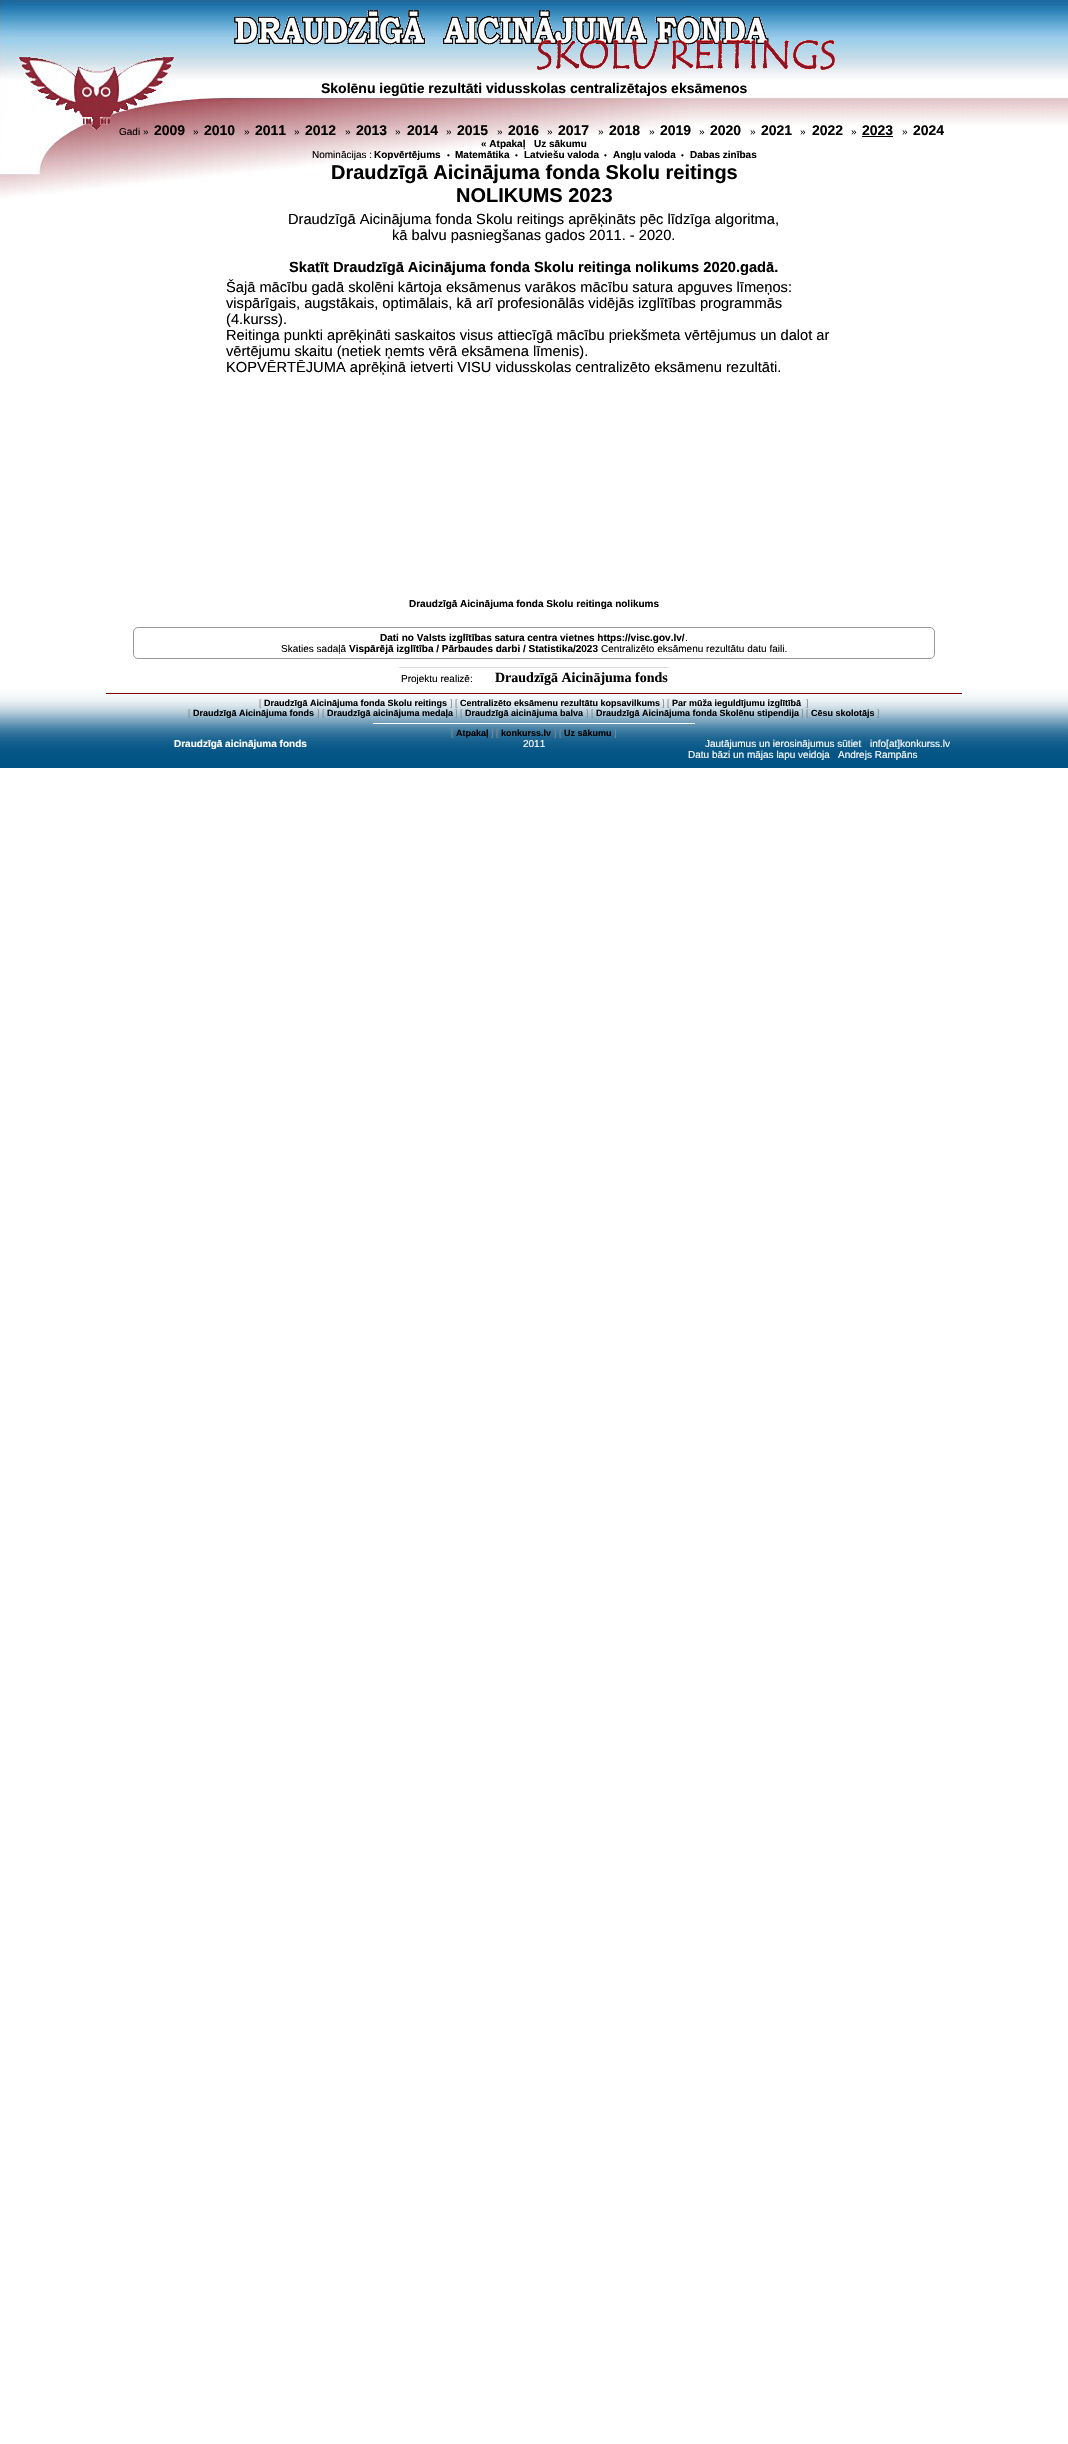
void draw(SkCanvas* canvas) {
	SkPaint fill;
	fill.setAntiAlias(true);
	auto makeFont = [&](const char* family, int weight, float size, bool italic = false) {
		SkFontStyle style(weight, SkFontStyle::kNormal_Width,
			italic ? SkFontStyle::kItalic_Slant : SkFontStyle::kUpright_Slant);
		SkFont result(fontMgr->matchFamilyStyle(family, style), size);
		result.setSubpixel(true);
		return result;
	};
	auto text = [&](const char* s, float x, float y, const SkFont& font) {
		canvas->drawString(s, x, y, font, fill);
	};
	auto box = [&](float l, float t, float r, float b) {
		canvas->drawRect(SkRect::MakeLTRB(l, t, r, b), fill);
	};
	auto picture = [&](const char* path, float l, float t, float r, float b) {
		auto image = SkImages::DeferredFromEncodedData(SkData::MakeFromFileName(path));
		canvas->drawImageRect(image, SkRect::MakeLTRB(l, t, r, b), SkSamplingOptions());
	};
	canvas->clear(0xFFFFFFFF);
	picture("image0.png", 689, 0, 1068, 125);
	picture("image1.png", 0, 0, 689, 198);
	picture("image2.png", 234, 10, 835, 70);
	fill.setColor(0xFF000000);
	box(862, 136, 893, 137);
	fill.setStyle(SkPaint::kStroke_Style);
	fill.setStrokeWidth(1);
	fill.setColor(0xFF999999);
	canvas->drawRoundRect(SkRect::MakeLTRB(133.5f, 627.5f, 934.5f, 658.5f), 4.5f, 4.5f, fill);
	fill.setStyle(SkPaint::kFill_Style);
	fill.setColor(0xFFDDDDDD);
	box(399, 667, 669, 668);
	picture("image3.png", 0, 690, 1068, 768);
	fill.setColor(0xFF800000);
	box(106, 693, 962, 694);
	fill.setColor(0xFFFFFFFF);
	box(373, 723, 695, 724);
	auto font1 = makeFont("Liberation Sans", 700, 14);
	fill.setColor(0xFF000000);
	text("Skolēnu iegūtie rezultāti vidusskolas centralizētajos eksāmenos", 321, 93, font1);
	auto font2 = makeFont("Liberation Sans", 400, 10);
	text("Gadi »", 119, 135, font2);
	text("2009", 154, 135, font1);
	text("»", 193, 135, font2);
	text("2010", 204, 135, font1);
	text("»", 244, 135, font2);
	text("2011", 255, 135, font1);
	text("»", 294, 135, font2);
	text("2012", 305, 135, font1);
	text("»", 345, 135, font2);
	text("2013", 356, 135, font1);
	text("»", 395, 135, font2);
	text("2014", 407, 135, font1);
	text("»", 446, 135, font2);
	text("2015", 457, 135, font1);
	text("»", 497, 135, font2);
	text("2016", 508, 135, font1);
	text("»", 547, 135, font2);
	text("2017", 558, 135, font1);
	text("»", 598, 135, font2);
	text("2018", 609, 135, font1);
	text("»", 649, 135, font2);
	text("2019", 660, 135, font1);
	text("»", 699, 135, font2);
	text("2020", 710, 135, font1);
	text("»", 750, 135, font2);
	text("2021", 761, 135, font1);
	text("»", 800, 135, font2);
	text("2022", 812, 135, font1);
	text("»", 851, 135, font2);
	text("2023", 862, 135, font1);
	text("»", 902, 135, font2);
	text("2024", 913, 135, font1);
	auto font3 = makeFont("Liberation Sans", 700, 10);
	text("« Atpakaļ", 481, 147, font3);
	text("Uz sākumu", 534, 147, font3);
	text("Nominācijas :", 312, 158, font2);
	text("Kopvērtējums", 374, 158, font3);
	auto font4 = makeFont("Liberation Sans", 400, 8);
	text("•", 447, 158, font4);
	text("Matemātika", 455, 158, font3);
	text("•", 515, 158, font4);
	text("Latviešu valoda", 524, 158, font3);
	text("•", 604, 158, font4);
	text("Angļu valoda", 613, 158, font3);
	text("•", 681, 158, font4);
	text("Dabas zinības", 690, 158, font3);
	auto font5 = makeFont("Liberation Sans", 700, 20);
	text("Draudzīgā Aicinājuma fonda Skolu reitings", 331, 179, font5);
	text("NOLIKUMS 2023", 456, 202, font5);
	auto font6 = makeFont("Liberation Sans", 400, 14.65f);
	text("Draudzīgā Aicinājuma fonda Skolu reitings aprēķināts pēc līdzīga algoritma,", 288, 224, font6);
	text("kā balvu pasniegšanas gados 2011. - 2020.", 392, 240, font6);
	auto font7 = makeFont("Liberation Sans", 700, 14.65f);
	text("Skatīt Draudzīgā Aicinājuma fonda Skolu reitinga nolikums 2020.gadā.", 289, 272, font7);
	text("Šajā mācību gadā skolēni kārtoja eksāmenus varākos mācību satura apguves līmeņos:", 226, 292, font6);
	text("vispārīgais, augstākais, optimālais, kā arī profesionālās vidējās izglītības programmās", 226, 308, font6);
	text("(4.kurss).", 226, 324, font6);
	text("Reitinga punkti aprēķināti saskaitos visus attiecīgā mācību priekšmeta vērtējumus un dalot ar", 226, 340, font6);
	text("vērtējumu skaitu (netiek ņemts vērā eksāmena līmenis).", 226, 356, font6);
	text("KOPVĒRTĒJUMA aprēķinā ietverti VISU vidusskolas centralizēto eksāmenu rezultāti.", 226, 372, font6);
	text("Draudzīgā Aicinājuma fonda Skolu reitinga nolikums", 409, 607, font3);
	text("Dati no Valsts izglītības satura centra vietnes https://visc.gov.lv/", 380, 641, font3);
	text(".", 685, 641, font2);
	text("Skaties sadaļā", 281, 652, font2);
	text("Vispārējā izglītība / Pārbaudes darbi / Statistika/2023", 349, 652, font3);
	text("Centralizēto eksāmenu rezultātu datu faili.", 601, 652, font2);
	text("Projektu realizē:", 401, 682, font2);
	auto font8 = makeFont("Liberation Serif", 700, 14);
	text("Draudzīgā Aicinājuma fonds", 495, 682, font8);
	auto font9 = makeFont("Liberation Sans", 400, 9);
	fill.setColor(0xFF888888);
	text("[", 259, 706, font9);
	auto font10 = makeFont("Liberation Sans", 700, 9);
	fill.setColor(0xFF000000);
	text("Draudzīgā Aicinājuma fonda Skolu reitings", 264, 706, font10);
	fill.setColor(0xFF888888);
	text("] [", 450, 706, font9);
	fill.setColor(0xFF000000);
	text("Centralizēto eksāmenu rezultātu kopsavilkums", 460, 706, font10);
	fill.setColor(0xFF888888);
	text("] [", 662, 706, font9);
	fill.setColor(0xFF000000);
	text("Par mūža ieguldījumu izglītībā", 672, 706, font10);
	fill.setColor(0xFF888888);
	text("]", 806, 706, font9);
	text("[", 188, 716, font9);
	fill.setColor(0xFF000000);
	text("Draudzīgā Aicinājuma fonds", 193, 716, font10);
	fill.setColor(0xFF888888);
	text("] [", 317, 716, font9);
	fill.setColor(0xFF000000);
	text("Draudzīgā aicinājuma medaļa", 327, 716, font10);
	fill.setColor(0xFF888888);
	text("] [", 455, 716, font9);
	fill.setColor(0xFF000000);
	text("Draudzīgā aicinājuma balva", 465, 716, font10);
	fill.setColor(0xFF888888);
	text("] [", 586, 716, font9);
	fill.setColor(0xFF000000);
	text("Draudzīgā Aicinājuma fonda Skolēnu stipendija", 596, 716, font10);
	fill.setColor(0xFF888888);
	text("] [", 801, 716, font9);
	fill.setColor(0xFF000000);
	text("Cēsu skolotājs", 811, 716, font10);
	fill.setColor(0xFF888888);
	text("]", 877, 716, font9);
	text("[", 451, 736, font9);
	fill.setColor(0xFF000000);
	text("Atpakaļ", 456, 736, font10);
	fill.setColor(0xFF888888);
	text("] [", 491, 736, font9);
	fill.setColor(0xFF000000);
	text("konkurss.lv", 501, 736, font10);
	fill.setColor(0xFF888888);
	text("] [", 554, 736, font9);
	fill.setColor(0xFF000000);
	text("Uz sākumu", 564, 736, font10);
	fill.setColor(0xFF888888);
	text("]", 614, 736, font9);
	fill.setColor(0xFFFFFFFF);
	text("Draudzīgā aicinājuma fonds", 174, 747, font3);
	text("2011", 523, 747, font2);
	text("Jautājumus un ierosinājumus sūtiet", 705, 747, font2);
	text("info[at]konkurss.lv", 870, 747, font2);
	text("Datu bāzi un mājas lapu veidoja", 688, 758, font2);
	text("Andrejs Rampāns", 838, 758, font2);
}
